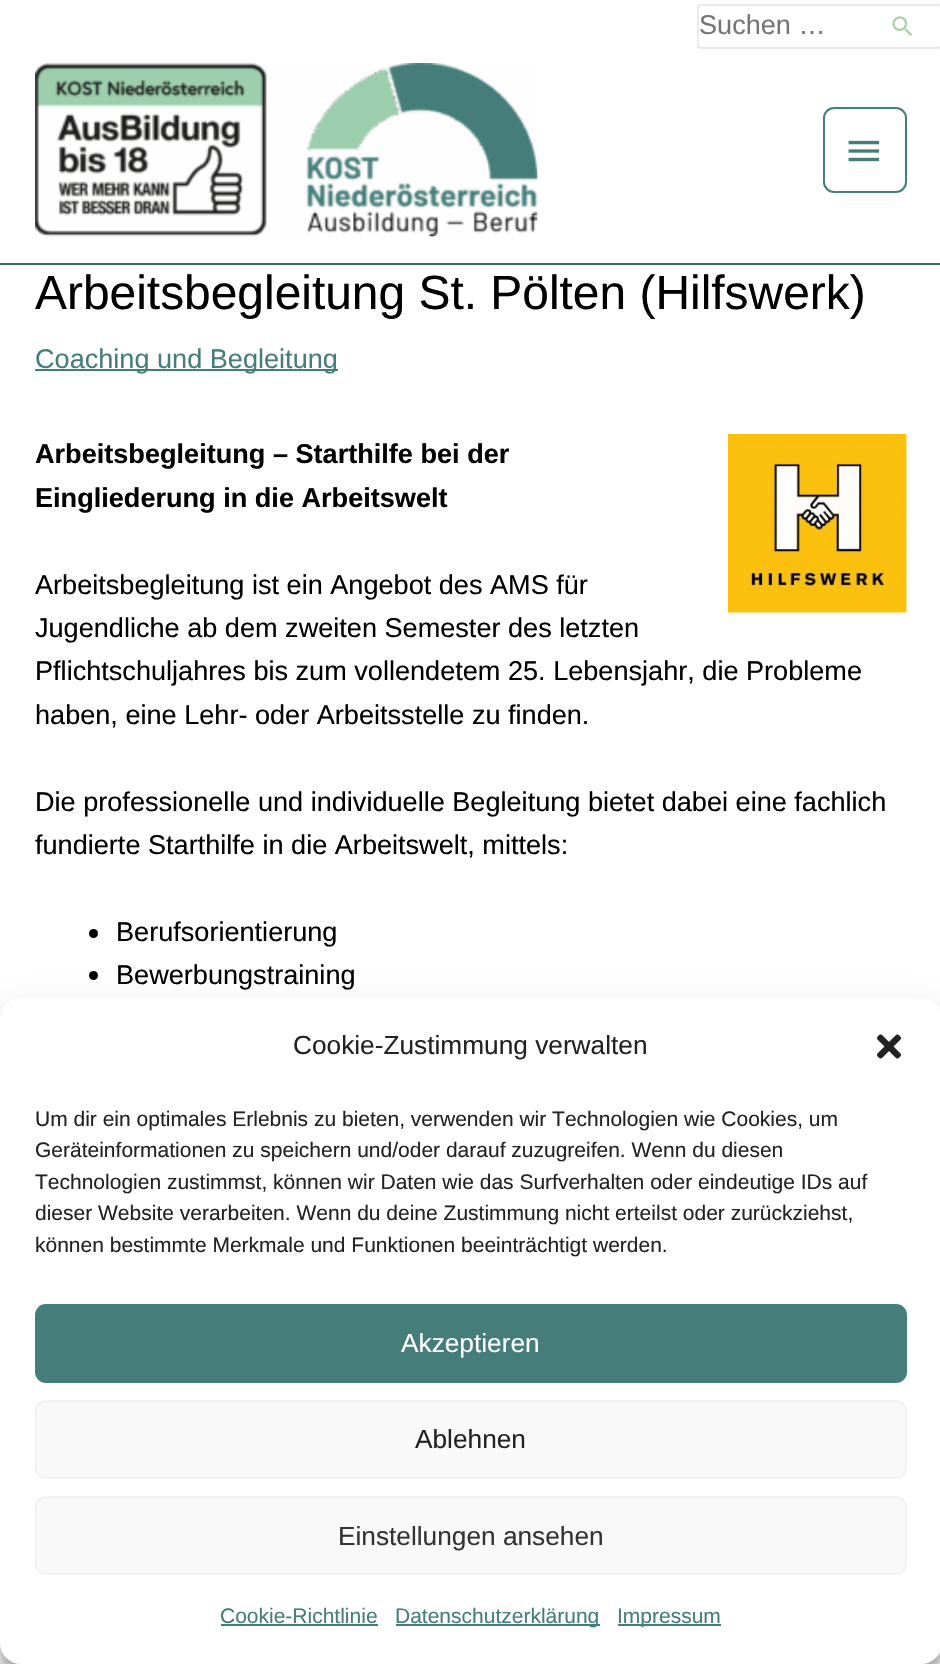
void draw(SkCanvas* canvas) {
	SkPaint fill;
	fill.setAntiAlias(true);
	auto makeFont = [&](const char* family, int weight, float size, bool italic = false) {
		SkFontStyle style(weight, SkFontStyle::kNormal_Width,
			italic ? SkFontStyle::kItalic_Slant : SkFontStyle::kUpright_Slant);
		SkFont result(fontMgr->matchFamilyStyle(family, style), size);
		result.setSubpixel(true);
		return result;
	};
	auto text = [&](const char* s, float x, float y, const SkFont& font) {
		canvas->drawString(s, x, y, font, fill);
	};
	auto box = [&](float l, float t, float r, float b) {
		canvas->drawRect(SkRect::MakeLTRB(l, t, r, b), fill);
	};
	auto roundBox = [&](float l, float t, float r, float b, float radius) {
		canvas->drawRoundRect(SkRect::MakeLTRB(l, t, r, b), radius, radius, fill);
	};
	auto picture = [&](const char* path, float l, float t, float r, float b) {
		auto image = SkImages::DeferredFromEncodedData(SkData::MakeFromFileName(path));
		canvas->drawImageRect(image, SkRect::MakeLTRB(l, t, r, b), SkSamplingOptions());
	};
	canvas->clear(0xFFFFFFFF);
	fill.setStyle(SkPaint::kStroke_Style);
	fill.setStrokeWidth(2);
	fill.setColor(0xFFEAEAEA);
	canvas->drawRoundRect(SkRect::MakeLTRB(698, 5, 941, 48), 3, 3, fill);
	picture("image0.png", 892, 16, 912, 36);
	fill.setStyle(SkPaint::kFill_Style);
	fill.setColor(0xFF386E5E);
	box(0, 263, 940, 265);
	picture("image1.png", 35, 63, 538, 237);
	fill.setStyle(SkPaint::kStroke_Style);
	fill.setColor(0xFF447D79);
	canvas->drawRoundRect(SkRect::MakeLTRB(824, 108, 906, 192), 10, 10, fill);
	picture("image2.png", 848, 140, 880, 162);
	fill.setStyle(SkPaint::kFill_Style);
	box(35, 369, 338, 371);
	picture("image3.png", 728, 434, 907, 613);
	fill.setColor(0xFF000000);
	canvas->drawCircle(93.5f, 933.5f, 4.5f, fill);
	canvas->drawCircle(93.5f, 975.5f, 4.5f, fill);
	fill.setColor(0x3B000000);
	fill.setMaskFilter(SkMaskFilter::MakeBlur(kNormal_SkBlurStyle, 5));
	canvas->drawRoundRect(SkRect::MakeLTRB(0, 1008, 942, 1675), 21, 21, fill);
	fill.setMaskFilter(nullptr);
	fill.setColor(0x30000000);
	fill.setMaskFilter(SkMaskFilter::MakeBlur(kNormal_SkBlurStyle, 17.5f));
	canvas->drawRoundRect(SkRect::MakeLTRB(0, 1015, 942, 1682), 21, 21, fill);
	fill.setMaskFilter(nullptr);
	fill.setColor(0xFFFFFFFF);
	roundBox(0, 998, 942, 1664, 21);
	picture("image4.png", 877, 1034, 901, 1059);
	fill.setColor(0xFF447D79);
	canvas->drawRoundRect(SkRect::MakeLTRB(36, 1305, 906, 1382), 10, 10, fill);
	fill.setStyle(SkPaint::kStroke_Style);
	canvas->drawRoundRect(SkRect::MakeLTRB(36, 1305, 906, 1382), 10, 10, fill);
	fill.setStyle(SkPaint::kFill_Style);
	fill.setColor(0xFFF9F9F9);
	canvas->drawRoundRect(SkRect::MakeLTRB(36, 1401, 906, 1478), 10, 10, fill);
	fill.setStyle(SkPaint::kStroke_Style);
	fill.setColor(0xFFF2F2F2);
	canvas->drawRoundRect(SkRect::MakeLTRB(36, 1401, 906, 1478), 10, 10, fill);
	fill.setStyle(SkPaint::kFill_Style);
	fill.setColor(0xFFF9F9F9);
	canvas->drawRoundRect(SkRect::MakeLTRB(36, 1497, 906, 1574), 10, 10, fill);
	fill.setStyle(SkPaint::kStroke_Style);
	fill.setColor(0xFFF2F2F2);
	canvas->drawRoundRect(SkRect::MakeLTRB(36, 1497, 906, 1574), 10, 10, fill);
	fill.setStyle(SkPaint::kFill_Style);
	fill.setColor(0xFF447D79);
	box(221, 1624, 378, 1626);
	box(396, 1624, 600, 1626);
	box(618, 1624, 721, 1626);
	auto font1 = makeFont("Liberation Sans", 400, 27.1f);
	fill.setColor(0xFF757575);
	text("Suchen …", 699, 34, font1);
	auto font2 = makeFont("Liberation Sans", 400, 47.9f);
	fill.setColor(0xFF000000);
	text("Arbeitsbegleitung St. Pölten (Hilfswerk)", 35, 309, font2);
	fill.setColor(0xFF447D79);
	text("Coaching und Begleitung", 35, 368, font1);
	auto font3 = makeFont("Liberation Sans", 700, 27.1f);
	fill.setColor(0xFF000000);
	text("Arbeitsbegleitung – Starthilfe bei der", 35, 463, font3);
	text("Eingliederung in die Arbeitswelt", 35, 507, font3);
	text("Arbeitsbegleitung ist ein Angebot des AMS für", 35, 594, font1);
	text("Jugendliche ab dem zweiten Semester des letzten", 35, 637, font1);
	text("Pflichtschuljahres bis zum vollendetem 25. Lebensjahr, die Probleme", 35, 680, font1);
	text("haben, eine Lehr- oder Arbeitsstelle zu finden.", 35, 724, font1);
	text("Die professionelle und individuelle Begleitung bietet dabei eine fachlich", 35, 811, font1);
	text("fundierte Starthilfe in die Arbeitswelt, mittels:", 35, 854, font1);
	text("Berufsorientierung", 116, 941, font1);
	text("Bewerbungstraining", 116, 984, font1);
	auto font4 = makeFont("Liberation Sans", 400, 26.25f);
	fill.setColor(0xFF222222);
	text("Cookie-Zustimmung verwalten", 293, 1054, font4);
	auto font5 = makeFont("Liberation Sans", 400, 21);
	text("Um dir ein optimales Erlebnis zu bieten, verwenden wir Technologien wie Cookies, um", 35, 1126, font5);
	text("Geräteinformationen zu speichern und/oder darauf zuzugreifen. Wenn du diesen", 35, 1157, font5);
	text("Technologien zustimmst, können wir Daten wie das Surfverhalten oder eindeutige IDs auf", 35, 1189, font5);
	text("dieser Website verarbeiten. Wenn du deine Zustimmung nicht erteilst oder zurückziehst,", 35, 1220, font5);
	text("können bestimmte Merkmale und Funktionen beeinträchtigt werden.", 35, 1252, font5);
	fill.setColor(0xFFFFFFFF);
	text("Akzeptieren", 401, 1352, font4);
	fill.setColor(0xFF222222);
	text("Ablehnen", 415, 1448, font4);
	fill.setColor(0xFF333333);
	text("Einstellungen ansehen", 338, 1545, font4);
	fill.setColor(0xFF447D79);
	text("Cookie-Richtlinie", 220, 1623, font5);
	text("Datenschutzerklärung", 395, 1623, font5);
	text("Impressum", 617, 1623, font5);
}
